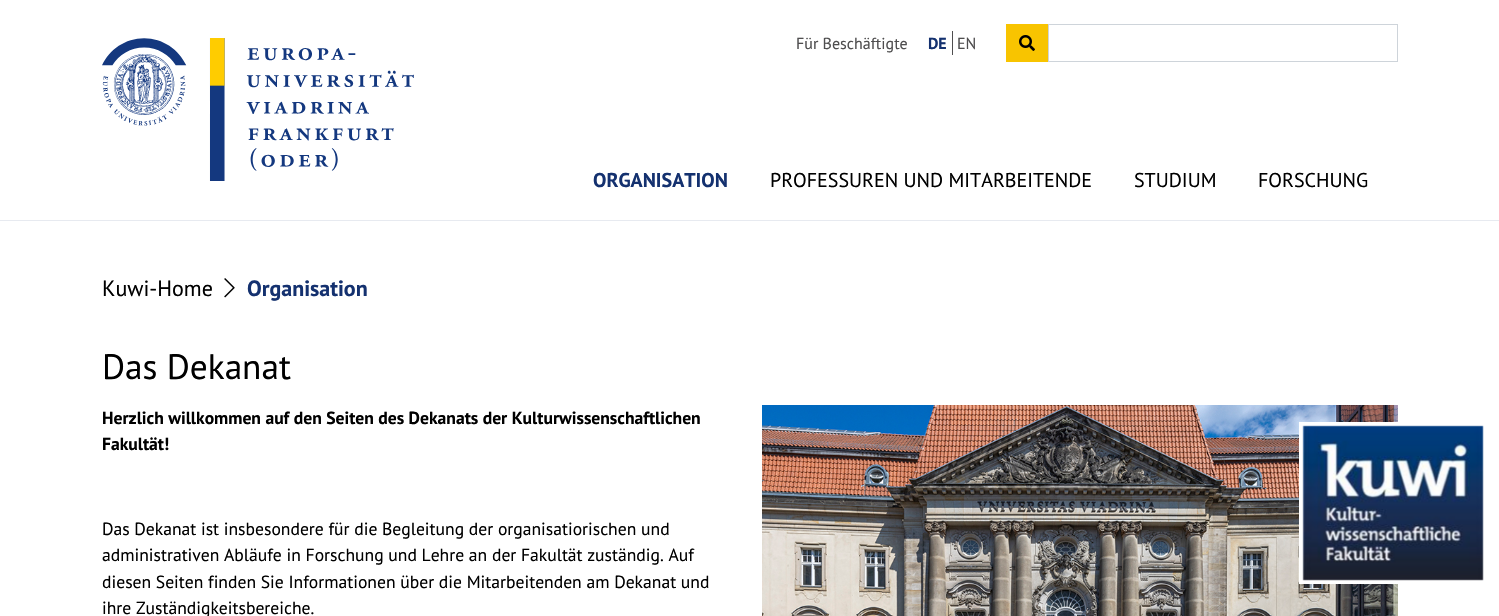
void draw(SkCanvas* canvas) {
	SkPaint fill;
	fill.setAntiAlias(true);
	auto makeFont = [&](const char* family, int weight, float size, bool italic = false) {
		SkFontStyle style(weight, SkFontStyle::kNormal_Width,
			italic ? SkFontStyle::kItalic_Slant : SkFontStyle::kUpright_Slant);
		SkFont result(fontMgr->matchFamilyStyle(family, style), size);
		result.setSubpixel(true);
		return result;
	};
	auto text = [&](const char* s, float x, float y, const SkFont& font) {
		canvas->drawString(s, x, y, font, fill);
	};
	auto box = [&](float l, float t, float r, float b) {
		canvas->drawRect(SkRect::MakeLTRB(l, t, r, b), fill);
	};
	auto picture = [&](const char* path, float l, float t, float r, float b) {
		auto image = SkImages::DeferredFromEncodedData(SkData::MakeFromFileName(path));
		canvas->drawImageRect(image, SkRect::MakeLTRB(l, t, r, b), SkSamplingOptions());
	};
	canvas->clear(0xFFFFFFFF);
	fill.setColor(0xFFE7EAF0);
	box(0, 220, 1499, 221);
	picture("image0.png", 102, 38, 414, 181);
	fill.setColor(0xFF4F4E4F);
	box(952, 31, 953, 55);
	fill.setColor(0xFFF8C400);
	box(1006, 24, 1048, 62);
	picture("image1.png", 1019, 35, 1035, 51);
	fill.setStyle(SkPaint::kStroke_Style);
	fill.setStrokeWidth(1);
	fill.setColor(0xFFCED4DA);
	canvas->drawRect(SkRect::MakeLTRB(1048.5f, 24.5f, 1397.5f, 61.5f), fill);
	picture("image4.png", 762, 405, 1398, 616);
	fill.setStyle(SkPaint::kFill_Style);
	fill.setColor(0xFFFFFFFF);
	box(1299, 422, 1398, 584);
	picture("image2.png", 1302, 425, 1484, 581);
	picture("image3.png", 224, 278, 235, 298);
	auto font1 = makeFont("PT Sans", 400, 16);
	fill.setColor(0xFF4F4E4F);
	text("Für Beschäftigte", 796, 49, font1);
	auto font2 = makeFont("PT Sans", 700, 16);
	fill.setColor(0xFF14316F);
	text("DE", 928, 49, font2);
	fill.setColor(0xFF4F4E4F);
	text("EN", 957, 49, font1);
	auto font3 = makeFont("PT Sans", 700, 20);
	fill.setColor(0xFF14316F);
	text("ORGANISATION", 593, 187, font3);
	auto font4 = makeFont("PT Sans", 400, 20);
	fill.setColor(0xFF000000);
	text("PROFESSUREN UND MITARBEITENDE", 770, 187, font4);
	text("STUDIUM", 1134, 187, font4);
	text("FORSCHUNG", 1258, 187, font4);
	auto font5 = makeFont("PT Sans", 400, 22);
	text("Kuwi-Home", 102, 296, font5);
	auto font6 = makeFont("PT Sans", 700, 22);
	fill.setColor(0xFF14316F);
	text("Organisation", 247, 296, font6);
	auto font7 = makeFont("PT Sans", 400, 35.25f);
	fill.setColor(0xFF000000);
	text("Das Dekanat", 102, 379, font7);
	auto font8 = makeFont("PT Sans", 700, 17.6f);
	text("Herzlich willkommen auf den Seiten des Dekanats der Kulturwissenschaftlichen", 102, 424, font8);
	text("Fakultät!", 102, 450, font8);
	auto font9 = makeFont("PT Sans", 400, 17.6f);
	text("Das Dekanat ist insbesondere für die Begleitung der organisatiorischen und", 102, 535, font9);
	text("administrativen Abläufe in Forschung und Lehre an der Fakultät zuständig. Auf", 102, 561, font9);
	text("diesen Seiten finden Sie Informationen über die Mitarbeitenden am Dekanat und", 102, 588, font9);
	text("ihre Zuständigkeitsbereiche.", 102, 614, font9);
}
